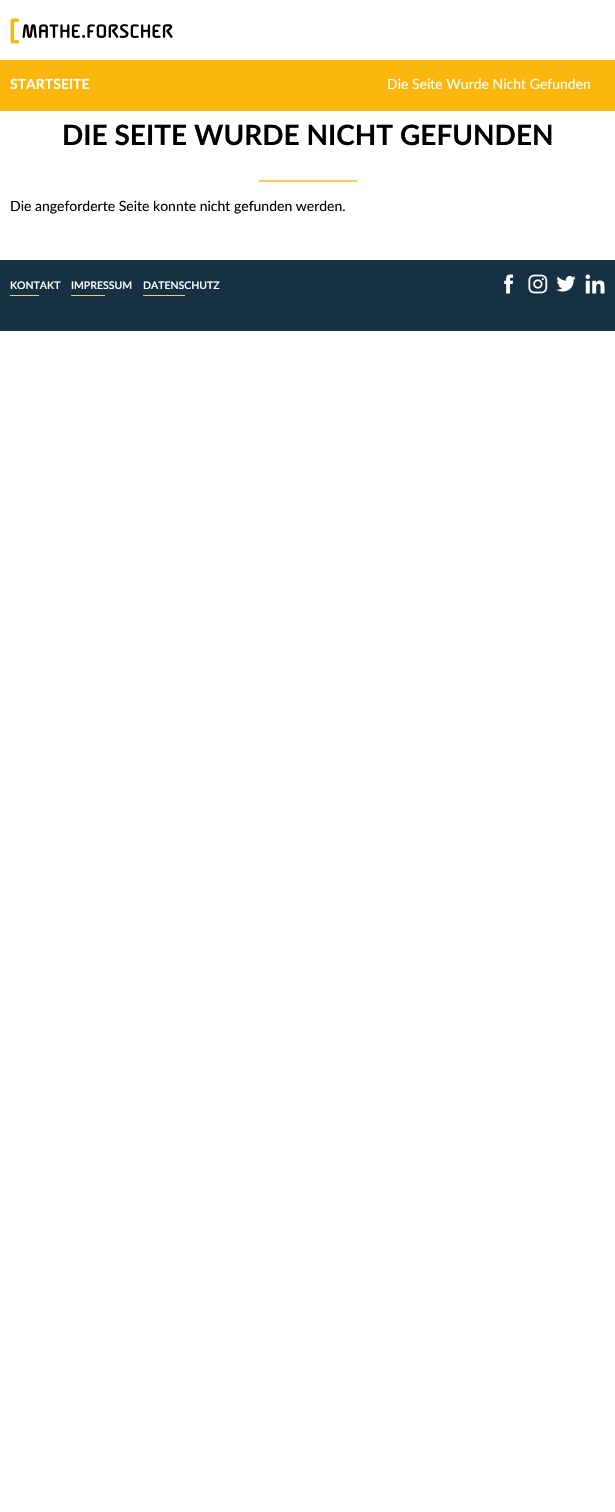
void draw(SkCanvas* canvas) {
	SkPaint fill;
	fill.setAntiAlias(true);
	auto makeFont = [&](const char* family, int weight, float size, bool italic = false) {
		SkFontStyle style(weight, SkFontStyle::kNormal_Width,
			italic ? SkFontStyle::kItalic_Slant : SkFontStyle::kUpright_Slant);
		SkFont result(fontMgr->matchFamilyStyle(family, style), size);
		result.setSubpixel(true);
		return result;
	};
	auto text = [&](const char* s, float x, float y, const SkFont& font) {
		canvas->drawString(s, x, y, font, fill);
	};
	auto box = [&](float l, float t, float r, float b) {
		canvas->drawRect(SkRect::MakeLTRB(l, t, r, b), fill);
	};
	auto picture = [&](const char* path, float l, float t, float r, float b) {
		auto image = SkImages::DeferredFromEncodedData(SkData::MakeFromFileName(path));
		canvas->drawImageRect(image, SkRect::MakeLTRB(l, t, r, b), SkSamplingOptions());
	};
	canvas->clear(0xFFFFFFFF);
	picture("image0.png", 10, 18, 173, 44);
	fill.setColor(0xFFFAB60D);
	box(0, 60, 615, 111);
	fill.setColor(0xFFFDCA59);
	box(259, 180, 357, 182);
	fill.setColor(0xFF163144);
	box(0, 260, 615, 331);
	fill.setColor(0xFFFFCB57);
	box(10, 295, 39, 296);
	box(71, 295, 105, 296);
	box(143, 295, 185, 296);
	picture("image1.png", 504, 274, 513, 294);
	picture("image2.png", 528, 274, 548, 294);
	picture("image3.png", 556, 276, 576, 292);
	picture("image4.png", 585, 274, 605, 294);
	auto font1 = makeFont("Lato", 700, 14);
	fill.setColor(0xFFFFFFFF);
	text("STARTSEITE", 10, 89, font1);
	auto font2 = makeFont("Lato", 400, 14);
	text("Die Seite Wurde Nicht Gefunden", 387, 89, font2);
	auto font3 = makeFont("Lato", 700, 28);
	fill.setColor(0xFF000000);
	text("DIE SEITE WURDE NICHT GEFUNDEN", 62, 145, font3);
	text("Die angeforderte Seite konnte nicht gefunden werden.", 10, 211, font2);
	auto font4 = makeFont("Lato", 600, 10.5f);
	fill.setColor(0xFFFFFFFF);
	text("KONTAKT", 10, 289, font4);
	text("IMPRESSUM", 71, 289, font4);
	text("DATENSCHUTZ", 143, 289, font4);
}
